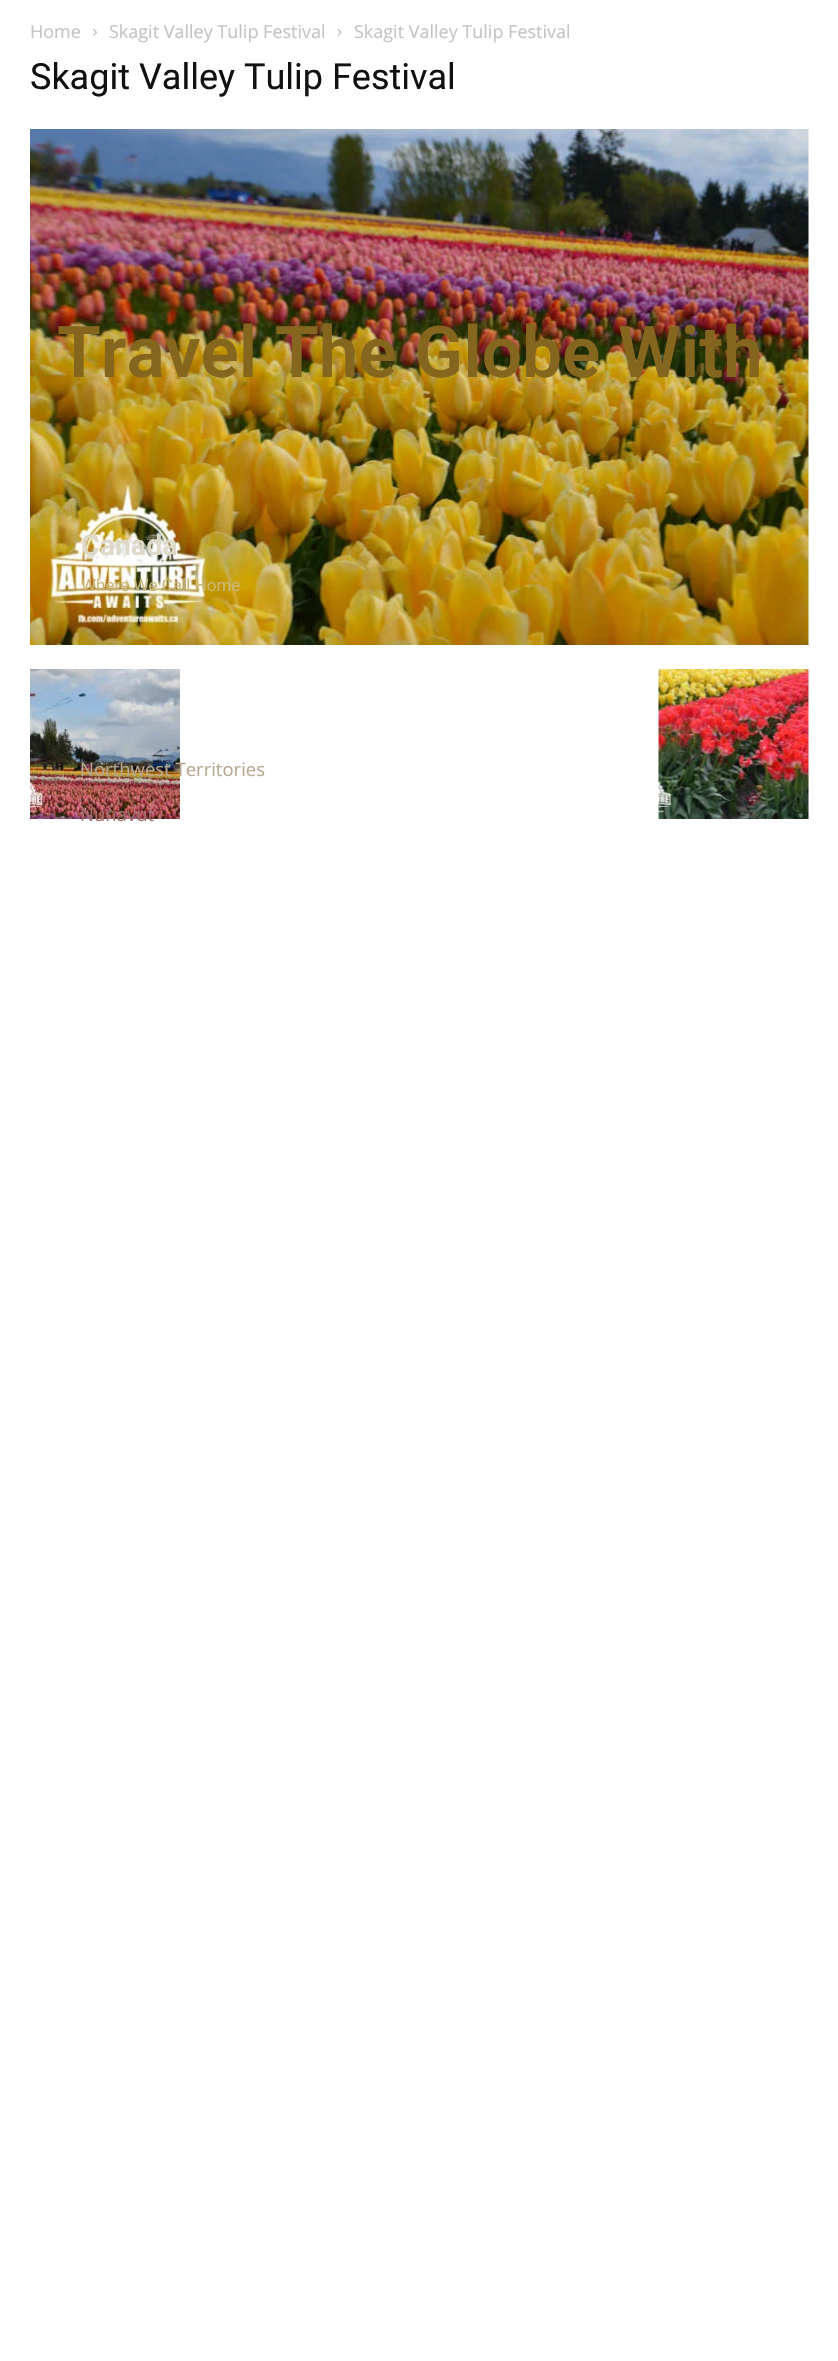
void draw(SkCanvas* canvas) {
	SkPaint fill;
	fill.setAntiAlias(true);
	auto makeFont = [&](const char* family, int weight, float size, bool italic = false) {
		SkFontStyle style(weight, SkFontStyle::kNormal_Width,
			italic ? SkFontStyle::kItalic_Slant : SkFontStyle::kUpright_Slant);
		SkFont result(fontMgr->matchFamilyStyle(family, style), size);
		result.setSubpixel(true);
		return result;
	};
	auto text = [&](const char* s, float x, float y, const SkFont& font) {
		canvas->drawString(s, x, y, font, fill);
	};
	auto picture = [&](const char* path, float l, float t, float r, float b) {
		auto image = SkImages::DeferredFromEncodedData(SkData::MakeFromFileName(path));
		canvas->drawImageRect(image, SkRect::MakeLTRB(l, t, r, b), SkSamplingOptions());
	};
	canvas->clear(0xFFFFFFFF);
	picture("image0.png", 93, 29, 97, 36);
	picture("image1.png", 337, 29, 342, 36);
	picture("image2.png", 30, 129, 809, 645);
	picture("image3.png", 30, 669, 180, 819);
	picture("image4.png", 658, 669, 809, 819);
	auto font1 = makeFont("Open Sans", 400, 18);
	fill.setColor(0xFFC3C3C3);
	text("Home", 30, 38, font1);
	text("Skagit Valley Tulip Festival", 109, 38, font1);
	text("Skagit Valley Tulip Festival", 354, 38, font1);
	auto font2 = makeFont("Roboto", 400, 36);
	fill.setColor(0xFF111111);
	text("Skagit Valley Tulip Festival", 30, 89, font2);
	auto font3 = makeFont("Roboto", 600, 71.25f);
	fill.setColor(0xFF85661F);
	text("Travel The Globe With", 57, 377, font3);
	auto font4 = makeFont("Roboto", 600, 28.5f);
	fill.setColor(0xFFDCD9C8);
	text("Canada", 81, 555, font4);
	auto font5 = makeFont("Roboto", 400, 17);
	fill.setColor(0xFFCBB879);
	text("Where We Call Home", 81, 591, font5);
	auto font6 = makeFont("Open Sans", 400, 18.5f);
	fill.setColor(0xFFB6A891);
	text("Northwest Territories", 80, 776, font6);
	fill.setColor(0xFFA36E6F);
	text("Nunavut", 80, 821, font6);
}
